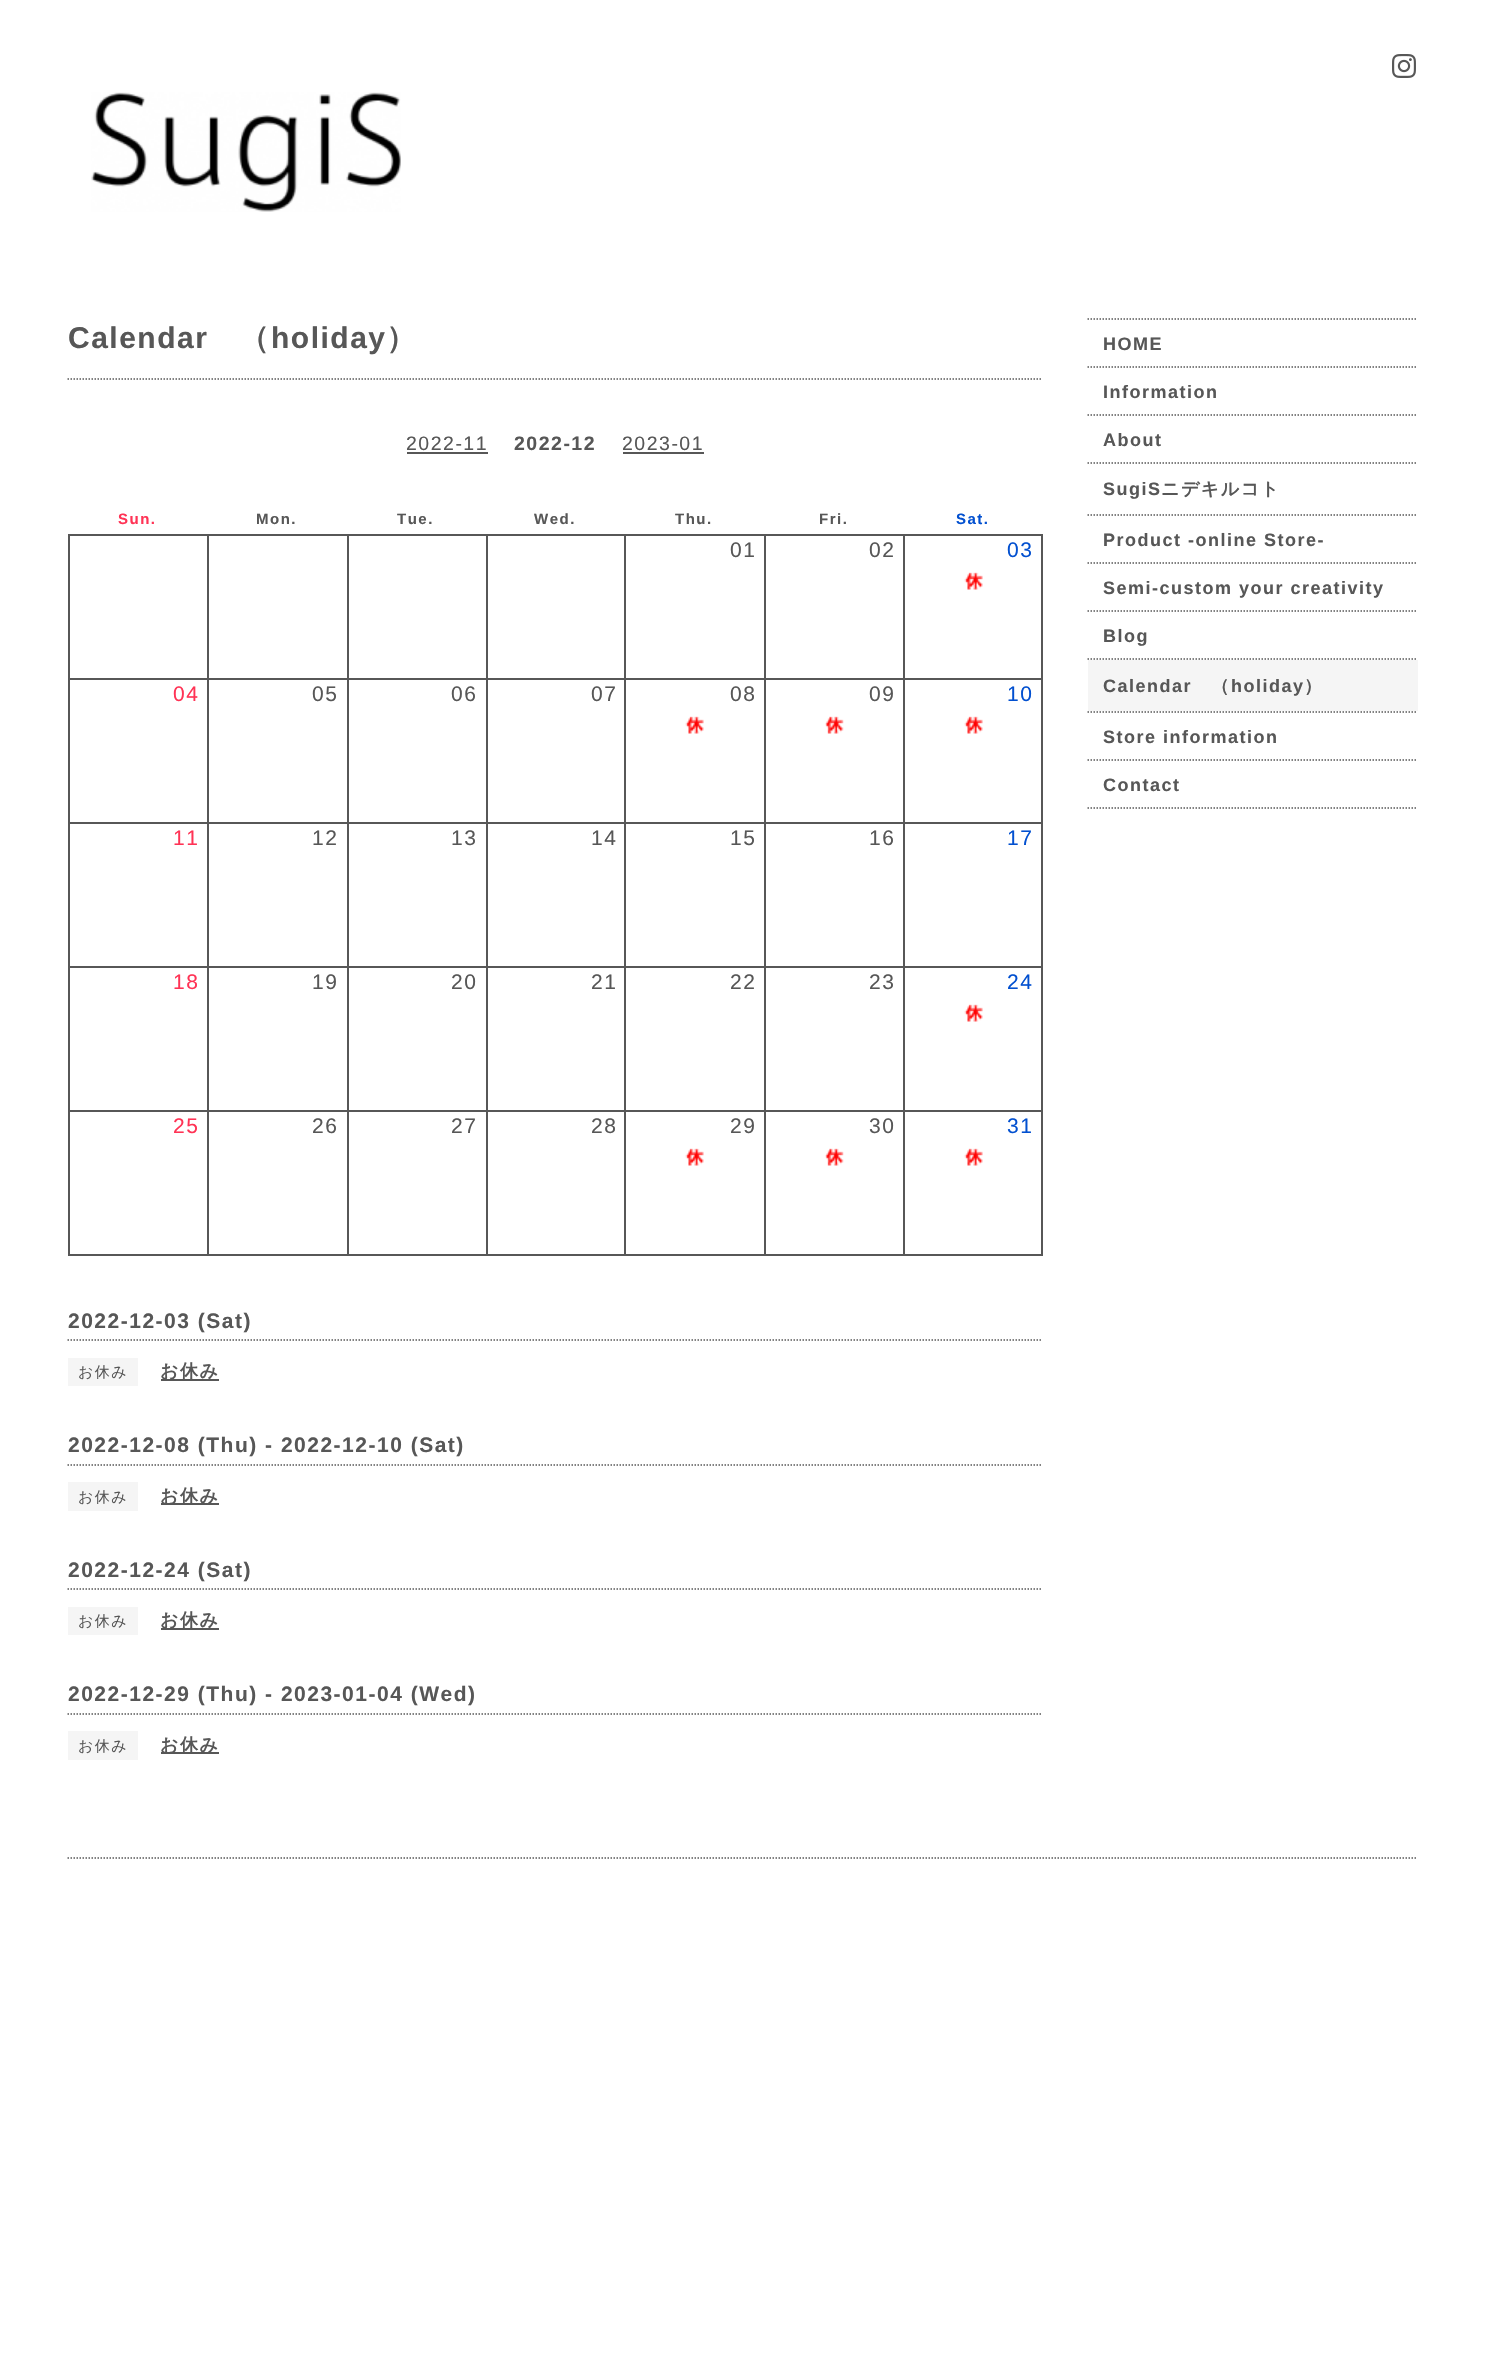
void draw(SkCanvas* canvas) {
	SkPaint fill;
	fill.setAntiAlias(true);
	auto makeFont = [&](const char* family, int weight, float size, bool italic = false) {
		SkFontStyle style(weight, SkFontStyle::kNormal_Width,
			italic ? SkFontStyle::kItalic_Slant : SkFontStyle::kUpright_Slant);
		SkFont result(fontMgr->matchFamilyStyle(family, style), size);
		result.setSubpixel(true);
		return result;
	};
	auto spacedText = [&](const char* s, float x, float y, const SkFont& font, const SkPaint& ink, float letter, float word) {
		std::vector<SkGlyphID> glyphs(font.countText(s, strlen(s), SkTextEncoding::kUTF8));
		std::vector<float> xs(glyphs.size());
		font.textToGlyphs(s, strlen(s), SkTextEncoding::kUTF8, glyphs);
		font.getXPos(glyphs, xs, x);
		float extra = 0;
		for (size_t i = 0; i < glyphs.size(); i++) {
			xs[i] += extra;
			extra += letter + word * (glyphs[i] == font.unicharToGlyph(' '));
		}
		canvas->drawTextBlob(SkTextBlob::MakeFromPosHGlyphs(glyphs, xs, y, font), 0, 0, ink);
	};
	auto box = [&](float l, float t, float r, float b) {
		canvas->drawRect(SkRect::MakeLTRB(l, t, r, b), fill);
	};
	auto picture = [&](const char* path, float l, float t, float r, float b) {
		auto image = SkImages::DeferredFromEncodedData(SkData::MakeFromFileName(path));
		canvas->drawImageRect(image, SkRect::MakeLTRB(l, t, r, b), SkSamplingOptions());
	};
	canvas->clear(0xFFFFFFFF);
	picture("image0.png", 1392, 54, 1416, 78);
	picture("image1.png", 91, 92, 401, 212);
	fill.setStyle(SkPaint::kStroke_Style);
	fill.setStrokeWidth(1.5f);
	fill.setColor(0xFF575757);
	fill.setPathEffect(SkDashPathEffect::Make({{1.5f, 1.5f}}, 0));
	canvas->drawPath(SkPathBuilder().moveTo(67.5f, 379).lineTo(1042.5f, 379).detach(), fill);
	fill.setPathEffect(nullptr);
	fill.setStyle(SkPaint::kFill_Style);
	box(407, 452, 488, 454);
	box(623, 452, 704, 454);
	box(68, 534, 1043, 536);
	box(68, 678, 903, 680);
	box(68, 536, 70, 680);
	box(207, 536, 209, 680);
	box(347, 536, 349, 680);
	box(486, 536, 488, 680);
	box(624, 536, 626, 680);
	box(764, 536, 766, 680);
	box(1041, 536, 1043, 1256);
	box(903, 678, 1043, 680);
	box(903, 536, 905, 680);
	picture("image2.png", 964, 572, 983, 590);
	box(68, 822, 1043, 824);
	box(68, 680, 70, 824);
	box(207, 680, 209, 824);
	box(347, 680, 349, 824);
	box(486, 680, 488, 824);
	box(624, 680, 626, 824);
	picture("image2.png", 685, 716, 704, 734);
	box(764, 680, 766, 824);
	picture("image3.png", 825, 716, 844, 734);
	box(903, 680, 905, 824);
	picture("image2.png", 964, 716, 983, 734);
	box(68, 966, 1043, 968);
	box(68, 824, 70, 968);
	box(207, 824, 209, 968);
	box(347, 824, 349, 968);
	box(486, 824, 488, 968);
	box(624, 824, 626, 968);
	box(764, 824, 766, 968);
	box(903, 824, 905, 968);
	box(68, 1110, 1043, 1112);
	box(68, 968, 70, 1112);
	box(207, 968, 209, 1112);
	box(347, 968, 349, 1112);
	box(486, 968, 488, 1112);
	box(624, 968, 626, 1112);
	box(764, 968, 766, 1112);
	box(903, 968, 905, 1112);
	picture("image2.png", 964, 1004, 983, 1022);
	box(68, 1254, 1043, 1256);
	box(68, 1112, 70, 1256);
	box(207, 1112, 209, 1256);
	box(347, 1112, 349, 1256);
	box(486, 1112, 488, 1256);
	box(624, 1112, 626, 1256);
	picture("image2.png", 685, 1148, 704, 1166);
	box(764, 1112, 766, 1256);
	picture("image3.png", 825, 1148, 844, 1166);
	box(903, 1112, 905, 1256);
	picture("image2.png", 964, 1148, 983, 1166);
	fill.setStyle(SkPaint::kStroke_Style);
	fill.setPathEffect(SkDashPathEffect::Make({{1.5f, 1.5f}}, 0));
	canvas->drawPath(SkPathBuilder().moveTo(67.5f, 1340).lineTo(1042.5f, 1340).detach(), fill);
	fill.setPathEffect(nullptr);
	fill.setStyle(SkPaint::kFill_Style);
	fill.setColor(0xFFF5F5F5);
	box(68, 1358, 138, 1386);
	fill.setColor(0xFF575757);
	box(161, 1379, 219, 1381);
	fill.setStyle(SkPaint::kStroke_Style);
	fill.setPathEffect(SkDashPathEffect::Make({{1.5f, 1.5f}}, 0));
	canvas->drawPath(SkPathBuilder().moveTo(67.5f, 1465).lineTo(1042.5f, 1465).detach(), fill);
	fill.setPathEffect(nullptr);
	fill.setStyle(SkPaint::kFill_Style);
	fill.setColor(0xFFF5F5F5);
	box(68, 1482, 138, 1511);
	fill.setColor(0xFF575757);
	box(161, 1503, 219, 1505);
	fill.setStyle(SkPaint::kStroke_Style);
	fill.setPathEffect(SkDashPathEffect::Make({{1.5f, 1.5f}}, 0));
	canvas->drawPath(SkPathBuilder().moveTo(67.5f, 1589).lineTo(1042.5f, 1589).detach(), fill);
	fill.setPathEffect(nullptr);
	fill.setStyle(SkPaint::kFill_Style);
	fill.setColor(0xFFF5F5F5);
	box(68, 1607, 138, 1635);
	fill.setColor(0xFF575757);
	box(161, 1628, 219, 1630);
	fill.setStyle(SkPaint::kStroke_Style);
	fill.setPathEffect(SkDashPathEffect::Make({{1.5f, 1.5f}}, 0));
	canvas->drawPath(SkPathBuilder().moveTo(67.5f, 1714).lineTo(1042.5f, 1714).detach(), fill);
	fill.setPathEffect(nullptr);
	fill.setStyle(SkPaint::kFill_Style);
	fill.setColor(0xFFF5F5F5);
	box(68, 1731, 138, 1760);
	fill.setColor(0xFF575757);
	box(161, 1752, 219, 1754);
	fill.setStyle(SkPaint::kStroke_Style);
	fill.setPathEffect(SkDashPathEffect::Make({{1.5f, 1.5f}}, 0));
	canvas->drawPath(SkPathBuilder().moveTo(1087.5f, 319).lineTo(1417.5f, 319).detach(), fill);
	fill.setPathEffect(nullptr);
	fill.setPathEffect(SkDashPathEffect::Make({{1.5f, 1.5f}}, 0));
	canvas->drawPath(SkPathBuilder().moveTo(1087.5f, 367).lineTo(1417.5f, 367).detach(), fill);
	fill.setPathEffect(nullptr);
	fill.setPathEffect(SkDashPathEffect::Make({{1.5f, 1.5f}}, 0));
	canvas->drawPath(SkPathBuilder().moveTo(1087.5f, 415).lineTo(1417.5f, 415).detach(), fill);
	fill.setPathEffect(nullptr);
	fill.setPathEffect(SkDashPathEffect::Make({{1.5f, 1.5f}}, 0));
	canvas->drawPath(SkPathBuilder().moveTo(1087.5f, 463).lineTo(1417.5f, 463).detach(), fill);
	fill.setPathEffect(nullptr);
	fill.setPathEffect(SkDashPathEffect::Make({{1.5f, 1.5f}}, 0));
	canvas->drawPath(SkPathBuilder().moveTo(1087.5f, 515).lineTo(1417.5f, 515).detach(), fill);
	fill.setPathEffect(nullptr);
	fill.setPathEffect(SkDashPathEffect::Make({{1.5f, 1.5f}}, 0));
	canvas->drawPath(SkPathBuilder().moveTo(1087.5f, 563).lineTo(1417.5f, 563).detach(), fill);
	fill.setPathEffect(nullptr);
	fill.setPathEffect(SkDashPathEffect::Make({{1.5f, 1.5f}}, 0));
	canvas->drawPath(SkPathBuilder().moveTo(1087.5f, 611).lineTo(1417.5f, 611).detach(), fill);
	fill.setPathEffect(nullptr);
	fill.setPathEffect(SkDashPathEffect::Make({{1.5f, 1.5f}}, 0));
	canvas->drawPath(SkPathBuilder().moveTo(1087.5f, 659).lineTo(1417.5f, 659).detach(), fill);
	fill.setPathEffect(nullptr);
	fill.setPathEffect(SkDashPathEffect::Make({{1.5f, 1.5f}}, 0));
	canvas->drawPath(SkPathBuilder().moveTo(1087.5f, 712).lineTo(1417.5f, 712).detach(), fill);
	fill.setPathEffect(nullptr);
	fill.setStyle(SkPaint::kFill_Style);
	fill.setColor(0xFFF5F5F5);
	box(1088, 660, 1418, 711);
	fill.setStyle(SkPaint::kStroke_Style);
	fill.setColor(0xFF575757);
	fill.setPathEffect(SkDashPathEffect::Make({{1.5f, 1.5f}}, 0));
	canvas->drawPath(SkPathBuilder().moveTo(1087.5f, 760).lineTo(1417.5f, 760).detach(), fill);
	fill.setPathEffect(nullptr);
	fill.setPathEffect(SkDashPathEffect::Make({{1.5f, 1.5f}}, 0));
	canvas->drawPath(SkPathBuilder().moveTo(1087.5f, 808).lineTo(1417.5f, 808).detach(), fill);
	fill.setPathEffect(nullptr);
	fill.setPathEffect(SkDashPathEffect::Make({{1.5f, 1.5f}}, 0));
	canvas->drawPath(SkPathBuilder().moveTo(67.5f, 1858).lineTo(1417.5f, 1858).detach(), fill);
	fill.setPathEffect(nullptr);
	auto font1 = makeFont("Liberation Sans", 700, 30);
	fill.setStyle(SkPaint::kFill_Style);
	spacedText("Calendar", 68, 348, font1, fill, 1.5f, 0);
	auto font2 = makeFont("WenQuanYi Zen Hei", 700, 30);
	spacedText("（", 239, 348, font2, fill, 1.5f, 0);
	spacedText("holiday", 271, 348, font1, fill, 1.5f, 0);
	spacedText("）", 386, 348, font2, fill, 1.5f, 0);
	auto font3 = makeFont("Liberation Sans", 400, 19.5f);
	spacedText("2022-11", 406, 450, font3, fill, 1.5f, 0);
	auto font4 = makeFont("Liberation Sans", 700, 19.5f);
	spacedText("2022-12", 514, 450, font4, fill, 1.5f, 0);
	spacedText("2023-01", 622, 450, font3, fill, 1.5f, 0);
	auto font5 = makeFont("Liberation Sans", 700, 15);
	fill.setColor(0xFFFF3355);
	spacedText("Sun.", 118, 524, font5, fill, 1.5f, 0);
	fill.setColor(0xFF575757);
	spacedText("Mon.", 256, 524, font5, fill, 1.5f, 0);
	spacedText("Tue.", 397, 524, font5, fill, 1.5f, 0);
	spacedText("Wed.", 534, 524, font5, fill, 1.5f, 0);
	spacedText("Thu.", 675, 524, font5, fill, 1.5f, 0);
	spacedText("Fri.", 819, 524, font5, fill, 1.5f, 0);
	fill.setColor(0xFF0250D0);
	spacedText("Sat.", 956, 524, font5, fill, 1.5f, 0);
	auto font6 = makeFont("Liberation Sans", 400, 21);
	fill.setColor(0xFF575757);
	spacedText("01", 730, 557, font6, fill, 1.5f, 0);
	spacedText("02", 869, 557, font6, fill, 1.5f, 0);
	fill.setColor(0xFF0250D0);
	spacedText("03", 1007, 557, font6, fill, 1.5f, 0);
	fill.setColor(0xFFFF3355);
	spacedText("04", 173, 701, font6, fill, 1.5f, 0);
	fill.setColor(0xFF575757);
	spacedText("05", 312, 701, font6, fill, 1.5f, 0);
	spacedText("06", 451, 701, font6, fill, 1.5f, 0);
	spacedText("07", 591, 701, font6, fill, 1.5f, 0);
	spacedText("08", 730, 701, font6, fill, 1.5f, 0);
	spacedText("09", 869, 701, font6, fill, 1.5f, 0);
	fill.setColor(0xFF0250D0);
	spacedText("10", 1007, 701, font6, fill, 1.5f, 0);
	fill.setColor(0xFFFF3355);
	spacedText("11", 173, 845, font6, fill, 1.5f, 0);
	fill.setColor(0xFF575757);
	spacedText("12", 312, 845, font6, fill, 1.5f, 0);
	spacedText("13", 451, 845, font6, fill, 1.5f, 0);
	spacedText("14", 591, 845, font6, fill, 1.5f, 0);
	spacedText("15", 730, 845, font6, fill, 1.5f, 0);
	spacedText("16", 869, 845, font6, fill, 1.5f, 0);
	fill.setColor(0xFF0250D0);
	spacedText("17", 1007, 845, font6, fill, 1.5f, 0);
	fill.setColor(0xFFFF3355);
	spacedText("18", 173, 989, font6, fill, 1.5f, 0);
	fill.setColor(0xFF575757);
	spacedText("19", 312, 989, font6, fill, 1.5f, 0);
	spacedText("20", 451, 989, font6, fill, 1.5f, 0);
	spacedText("21", 591, 989, font6, fill, 1.5f, 0);
	spacedText("22", 730, 989, font6, fill, 1.5f, 0);
	spacedText("23", 869, 989, font6, fill, 1.5f, 0);
	fill.setColor(0xFF0250D0);
	spacedText("24", 1007, 989, font6, fill, 1.5f, 0);
	fill.setColor(0xFFFF3355);
	spacedText("25", 173, 1133, font6, fill, 1.5f, 0);
	fill.setColor(0xFF575757);
	spacedText("26", 312, 1133, font6, fill, 1.5f, 0);
	spacedText("27", 451, 1133, font6, fill, 1.5f, 0);
	spacedText("28", 591, 1133, font6, fill, 1.5f, 0);
	spacedText("29", 730, 1133, font6, fill, 1.5f, 0);
	spacedText("30", 869, 1133, font6, fill, 1.5f, 0);
	fill.setColor(0xFF0250D0);
	spacedText("31", 1007, 1133, font6, fill, 1.5f, 0);
	auto font7 = makeFont("Liberation Sans", 700, 21);
	fill.setColor(0xFF575757);
	spacedText("2022-12-03 (Sat)", 68, 1328, font7, fill, 1.5f, 0);
	auto font8 = makeFont("WenQuanYi Zen Hei", 500, 15);
	spacedText("お休み", 78, 1377, font8, fill, 1.5f, 0);
	auto font9 = makeFont("WenQuanYi Zen Hei", 700, 18);
	spacedText("お休み", 160, 1377, font9, fill, 1.5f, 0);
	spacedText("2022-12-08 (Thu) - 2022-12-10 (Sat)", 68, 1452, font7, fill, 1.5f, 0);
	spacedText("お休み", 78, 1502, font8, fill, 1.5f, 0);
	spacedText("お休み", 160, 1502, font9, fill, 1.5f, 0);
	spacedText("2022-12-24 (Sat)", 68, 1577, font7, fill, 1.5f, 0);
	spacedText("お休み", 78, 1626, font8, fill, 1.5f, 0);
	spacedText("お休み", 160, 1626, font9, fill, 1.5f, 0);
	spacedText("2022-12-29 (Thu) - 2023-01-04 (Wed)", 68, 1701, font7, fill, 1.5f, 0);
	spacedText("お休み", 78, 1751, font8, fill, 1.5f, 0);
	spacedText("お休み", 160, 1751, font9, fill, 1.5f, 0);
	auto font10 = makeFont("Liberation Sans", 700, 18);
	spacedText("HOME", 1103, 350, font10, fill, 1.5f, 0);
	spacedText("Information", 1103, 398, font10, fill, 1.5f, 0);
	spacedText("About", 1103, 446, font10, fill, 1.5f, 0);
	spacedText("SugiS", 1103, 495, font10, fill, 1.5f, 0);
	spacedText("ニデキルコト", 1161, 495, font9, fill, 1.5f, 0);
	spacedText("Product -online Store-", 1103, 546, font10, fill, 1.5f, 0);
	spacedText("Semi-custom your creativity", 1103, 594, font10, fill, 1.5f, 0);
	spacedText("Blog", 1103, 642, font10, fill, 1.5f, 0);
	spacedText("Calendar", 1103, 692, font10, fill, 1.5f, 0);
	spacedText("（", 1211, 692, font9, fill, 1.5f, 0);
	spacedText("holiday", 1231, 692, font10, fill, 1.5f, 0);
	spacedText("）", 1304, 692, font9, fill, 1.5f, 0);
	spacedText("Store information", 1103, 743, font10, fill, 1.5f, 0);
	spacedText("Contact", 1103, 791, font10, fill, 1.5f, 0);
}
